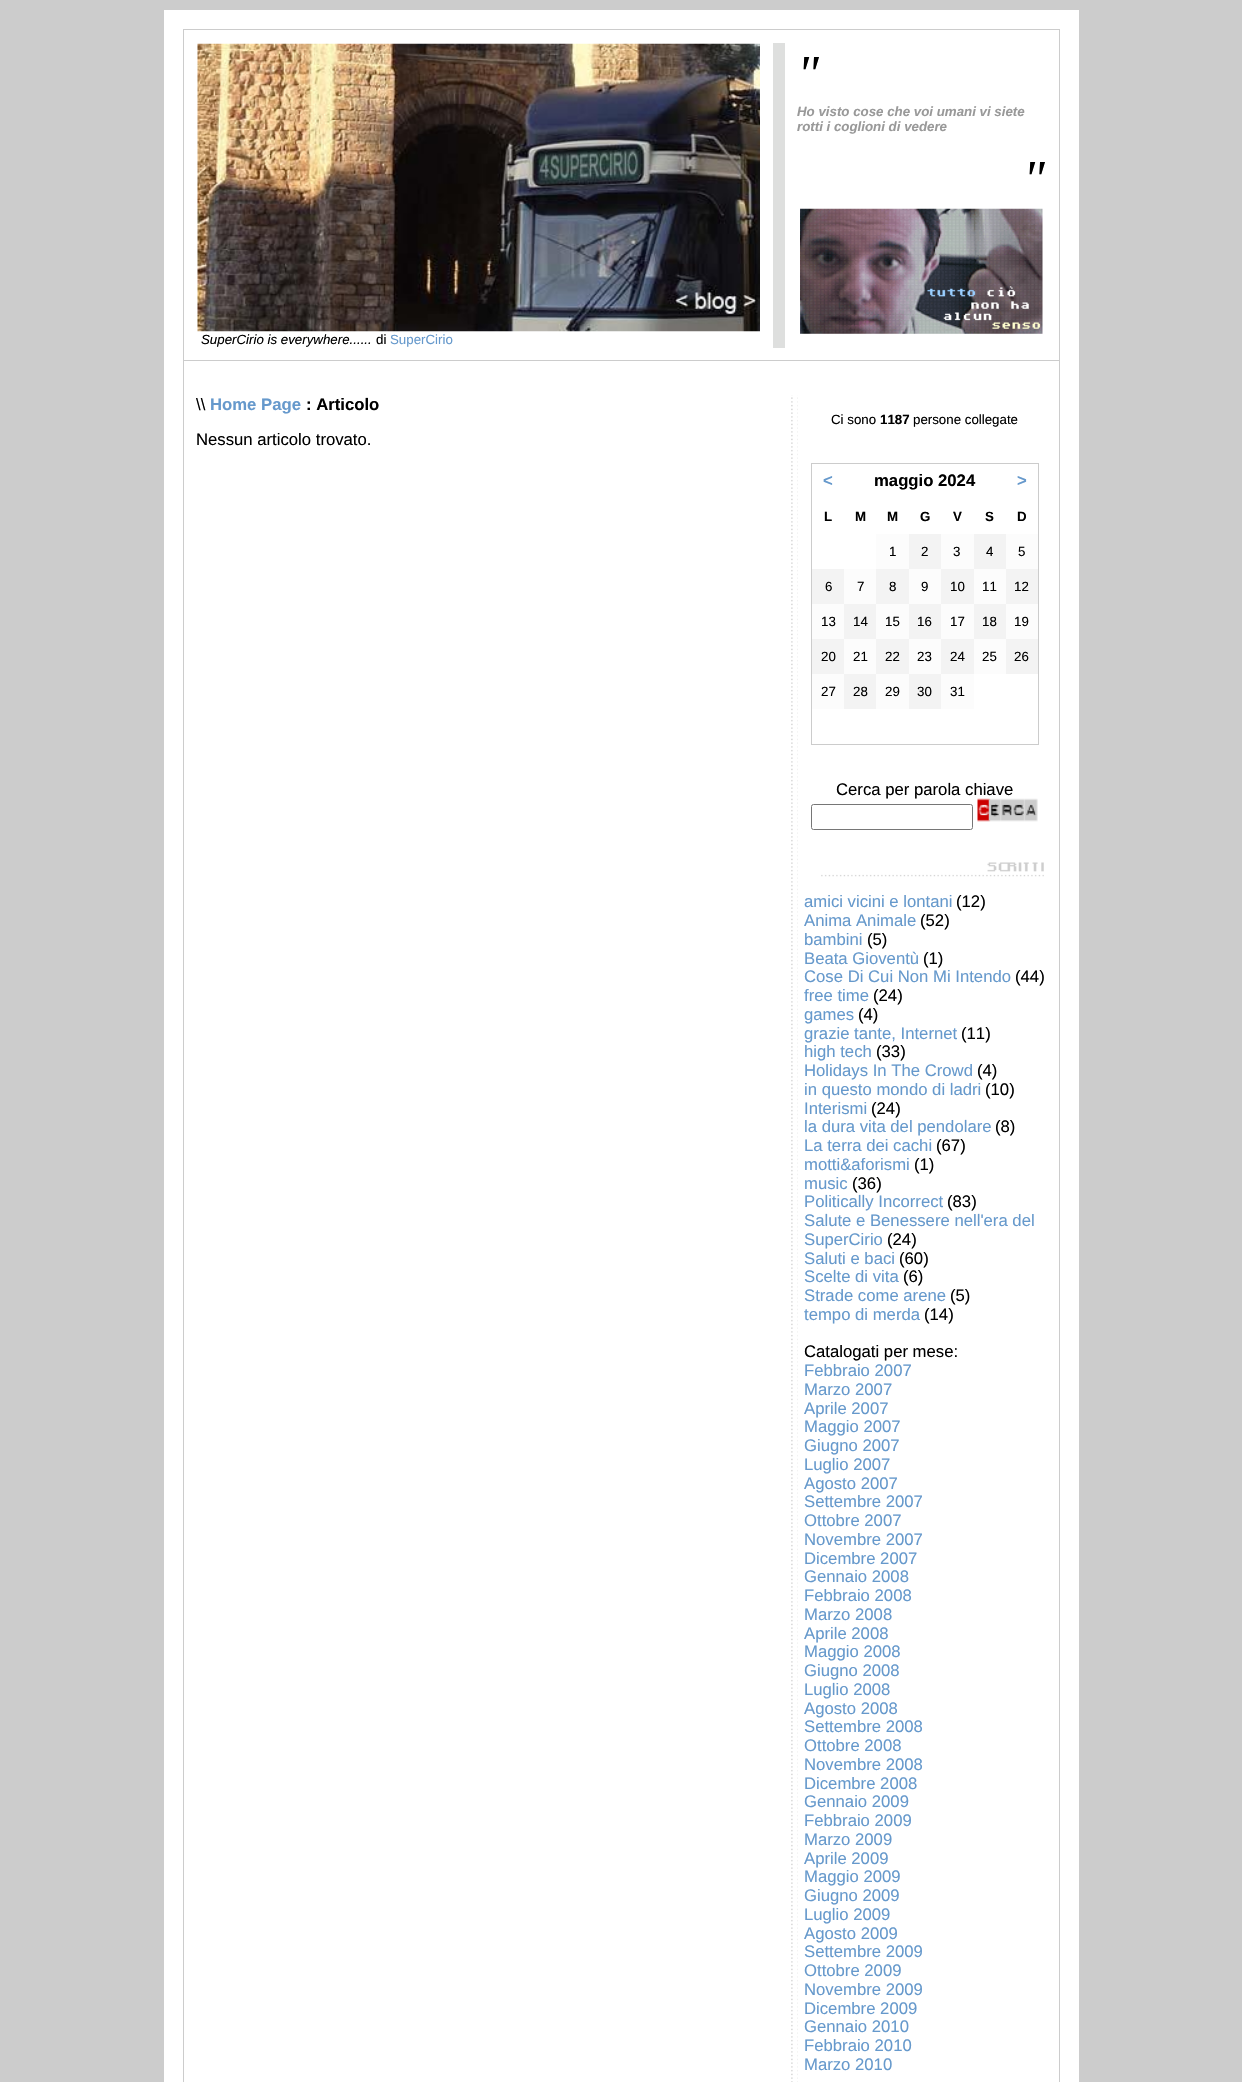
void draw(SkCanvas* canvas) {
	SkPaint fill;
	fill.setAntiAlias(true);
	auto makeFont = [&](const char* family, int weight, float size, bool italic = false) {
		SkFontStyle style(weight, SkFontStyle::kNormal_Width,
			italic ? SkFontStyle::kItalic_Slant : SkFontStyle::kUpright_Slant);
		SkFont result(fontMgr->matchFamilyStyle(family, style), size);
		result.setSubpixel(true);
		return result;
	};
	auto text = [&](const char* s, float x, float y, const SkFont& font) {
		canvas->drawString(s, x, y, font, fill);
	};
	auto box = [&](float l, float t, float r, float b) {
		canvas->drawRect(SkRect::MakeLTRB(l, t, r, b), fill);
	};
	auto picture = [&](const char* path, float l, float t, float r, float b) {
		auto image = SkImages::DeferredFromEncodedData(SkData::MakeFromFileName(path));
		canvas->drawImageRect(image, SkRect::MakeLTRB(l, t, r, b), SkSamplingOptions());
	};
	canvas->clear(0xFFCCCCCC);
	fill.setColor(0xFFFFFFFF);
	box(164, 10, 1079, 2082);
	fill.setColor(0xFFCCCCCC);
	box(183, 29, 1060, 30);
	box(1059, 29, 1060, 2082);
	box(183, 29, 184, 2082);
	fill.setColor(0xFFDEDFDE);
	box(773, 43, 785, 348);
	picture("image0.png", 800, 208, 1043, 334);
	picture("image1.png", 197, 43, 760, 332);
	fill.setColor(0xFFCCCCCC);
	box(183, 360, 1060, 361);
	picture("image2.png", 791, 395, 798, 2082);
	box(811, 463, 1039, 464);
	box(1038, 463, 1039, 745);
	box(811, 744, 1039, 745);
	box(811, 463, 812, 745);
	fill.setColor(0xFFFCFCFC);
	box(876, 534, 909, 569);
	fill.setColor(0xFFF3F3F3);
	box(909, 534, 941, 569);
	fill.setColor(0xFFFCFCFC);
	box(941, 534, 974, 569);
	fill.setColor(0xFFF3F3F3);
	box(974, 534, 1006, 569);
	fill.setColor(0xFFFCFCFC);
	box(1006, 534, 1038, 569);
	fill.setColor(0xFFF3F3F3);
	box(812, 569, 844, 604);
	fill.setColor(0xFFFCFCFC);
	box(844, 569, 876, 604);
	fill.setColor(0xFFF3F3F3);
	box(876, 569, 909, 604);
	fill.setColor(0xFFFCFCFC);
	box(909, 569, 941, 604);
	fill.setColor(0xFFF3F3F3);
	box(941, 569, 974, 604);
	fill.setColor(0xFFFCFCFC);
	box(974, 569, 1006, 604);
	fill.setColor(0xFFF3F3F3);
	box(1006, 569, 1038, 604);
	fill.setColor(0xFFFCFCFC);
	box(812, 604, 844, 639);
	fill.setColor(0xFFF3F3F3);
	box(844, 604, 876, 639);
	fill.setColor(0xFFFCFCFC);
	box(876, 604, 909, 639);
	fill.setColor(0xFFF3F3F3);
	box(909, 604, 941, 639);
	fill.setColor(0xFFFCFCFC);
	box(941, 604, 974, 639);
	fill.setColor(0xFFF3F3F3);
	box(974, 604, 1006, 639);
	fill.setColor(0xFFFCFCFC);
	box(1006, 604, 1038, 639);
	fill.setColor(0xFFF3F3F3);
	box(812, 639, 844, 674);
	fill.setColor(0xFFFCFCFC);
	box(844, 639, 876, 674);
	fill.setColor(0xFFF3F3F3);
	box(876, 639, 909, 674);
	fill.setColor(0xFFFCFCFC);
	box(909, 639, 941, 674);
	fill.setColor(0xFFF3F3F3);
	box(941, 639, 974, 674);
	fill.setColor(0xFFFCFCFC);
	box(974, 639, 1006, 674);
	fill.setColor(0xFFF3F3F3);
	box(1006, 639, 1038, 674);
	fill.setColor(0xFFFCFCFC);
	box(812, 674, 844, 709);
	fill.setColor(0xFFF3F3F3);
	box(844, 674, 876, 709);
	fill.setColor(0xFFFCFCFC);
	box(876, 674, 909, 709);
	fill.setColor(0xFFF3F3F3);
	box(909, 674, 941, 709);
	fill.setColor(0xFFFCFCFC);
	box(941, 674, 974, 709);
	fill.setStyle(SkPaint::kStroke_Style);
	fill.setStrokeWidth(1);
	fill.setColor(0xFF767676);
	canvas->drawRoundRect(SkRect::MakeLTRB(811.5f, 804.5f, 972.5f, 829.5f), 2, 2, fill);
	picture("image4.png", 821, 862, 1044, 877);
	auto font1 = makeFont("Liberation Serif", 400, 52, true);
	fill.setStyle(SkPaint::kFill_Style);
	fill.setColor(0xFF000000);
	text("\"", 797, 91, font1);
	auto font2 = makeFont("Liberation Sans", 700, 13.3f, true);
	fill.setColor(0xFF999999);
	text("Ho visto cose che voi umani vi siete", 797, 116, font2);
	text("rotti i coglioni di vedere", 797, 131, font2);
	fill.setColor(0xFF000000);
	text("\"", 1023, 196, font1);
	auto font3 = makeFont("Liberation Sans", 400, 13.3f, true);
	text("SuperCirio is everywhere......", 201, 344, font3);
	auto font4 = makeFont("Liberation Sans", 400, 13.3f);
	text("di", 376, 344, font4);
	fill.setColor(0xFF6699CC);
	text("SuperCirio", 390, 344, font4);
	auto font5 = makeFont("Liberation Sans", 400, 16.7f);
	fill.setColor(0xFF000000);
	text("\\\\", 196, 410, font5);
	auto font6 = makeFont("Liberation Sans", 700, 16.7f);
	fill.setColor(0xFF6699CC);
	text("Home Page", 210, 410, font6);
	fill.setColor(0xFF000000);
	text(": Articolo", 306, 410, font6);
	text("Nessun articolo trovato.", 196, 445, font5);
	text("Ci sono", 831, 424, font4);
	auto font7 = makeFont("Liberation Sans", 700, 13.3f);
	text("1187", 880, 424, font7);
	text("persone collegate", 913, 424, font4);
	fill.setColor(0xFF6699CC);
	text("<", 823, 486, font6);
	fill.setColor(0xFF000000);
	text("maggio 2024", 874, 486, font6);
	fill.setColor(0xFF6699CC);
	text(">", 1017, 486, font6);
	fill.setColor(0xFF000000);
	text("L", 824, 521, font7);
	text("M", 855, 521, font7);
	text("M", 887, 521, font7);
	text("G", 920, 521, font7);
	text("V", 953, 521, font7);
	text("S", 985, 521, font7);
	text("D", 1017, 521, font7);
	text("1", 889, 556, font4);
	text("2", 921, 556, font4);
	text("3", 953, 556, font4);
	text("4", 986, 556, font4);
	text("5", 1018, 556, font4);
	text("6", 825, 591, font4);
	text("7", 857, 591, font4);
	text("8", 889, 591, font4);
	text("9", 921, 591, font4);
	text("10", 950, 591, font4);
	text("11", 982, 591, font4);
	text("12", 1014, 591, font4);
	text("13", 821, 626, font4);
	text("14", 853, 626, font4);
	text("15", 885, 626, font4);
	text("16", 917, 626, font4);
	text("17", 950, 626, font4);
	text("18", 982, 626, font4);
	text("19", 1014, 626, font4);
	text("20", 821, 661, font4);
	text("21", 853, 661, font4);
	text("22", 885, 661, font4);
	text("23", 917, 661, font4);
	text("24", 950, 661, font4);
	text("25", 982, 661, font4);
	text("26", 1014, 661, font4);
	text("27", 821, 696, font4);
	text("28", 853, 696, font4);
	text("29", 885, 696, font4);
	text("30", 917, 696, font4);
	text("31", 950, 696, font4);
	text("Cerca per parola chiave", 836, 795, font5);
	picture("image3.png", 977, 798, 1038, 822);
	fill.setColor(0xFF6699CC);
	text("amici vicini e lontani", 804, 907, font5);
	fill.setColor(0xFF000000);
	text("(12)", 956, 907, font5);
	fill.setColor(0xFF6699CC);
	text("Anima Animale", 804, 926, font5);
	fill.setColor(0xFF000000);
	text("(52)", 920, 926, font5);
	fill.setColor(0xFF6699CC);
	text("bambini", 804, 945, font5);
	fill.setColor(0xFF000000);
	text("(5)", 867, 945, font5);
	fill.setColor(0xFF6699CC);
	text("Beata Gioventù", 804, 964, font5);
	fill.setColor(0xFF000000);
	text("(1)", 923, 964, font5);
	fill.setColor(0xFF6699CC);
	text("Cose Di Cui Non Mi Intendo", 804, 982, font5);
	fill.setColor(0xFF000000);
	text("(44)", 1015, 982, font5);
	fill.setColor(0xFF6699CC);
	text("free time", 804, 1001, font5);
	fill.setColor(0xFF000000);
	text("(24)", 873, 1001, font5);
	fill.setColor(0xFF6699CC);
	text("games", 804, 1020, font5);
	fill.setColor(0xFF000000);
	text("(4)", 858, 1020, font5);
	fill.setColor(0xFF6699CC);
	text("grazie tante, Internet", 804, 1039, font5);
	fill.setColor(0xFF000000);
	text("(11)", 961, 1039, font5);
	fill.setColor(0xFF6699CC);
	text("high tech", 804, 1057, font5);
	fill.setColor(0xFF000000);
	text("(33)", 876, 1057, font5);
	fill.setColor(0xFF6699CC);
	text("Holidays In The Crowd", 804, 1076, font5);
	fill.setColor(0xFF000000);
	text("(4)", 977, 1076, font5);
	fill.setColor(0xFF6699CC);
	text("in questo mondo di ladri", 804, 1095, font5);
	fill.setColor(0xFF000000);
	text("(10)", 985, 1095, font5);
	fill.setColor(0xFF6699CC);
	text("Interismi", 804, 1114, font5);
	fill.setColor(0xFF000000);
	text("(24)", 871, 1114, font5);
	fill.setColor(0xFF6699CC);
	text("la dura vita del pendolare", 804, 1132, font5);
	fill.setColor(0xFF000000);
	text("(8)", 995, 1132, font5);
	fill.setColor(0xFF6699CC);
	text("La terra dei cachi", 804, 1151, font5);
	fill.setColor(0xFF000000);
	text("(67)", 936, 1151, font5);
	fill.setColor(0xFF6699CC);
	text("motti&aforismi", 804, 1170, font5);
	fill.setColor(0xFF000000);
	text("(1)", 914, 1170, font5);
	fill.setColor(0xFF6699CC);
	text("music", 804, 1189, font5);
	fill.setColor(0xFF000000);
	text("(36)", 852, 1189, font5);
	fill.setColor(0xFF6699CC);
	text("Politically Incorrect", 804, 1207, font5);
	fill.setColor(0xFF000000);
	text("(83)", 947, 1207, font5);
	fill.setColor(0xFF6699CC);
	text("Salute e Benessere nell'era del", 804, 1226, font5);
	text("SuperCirio", 804, 1245, font5);
	fill.setColor(0xFF000000);
	text("(24)", 887, 1245, font5);
	fill.setColor(0xFF6699CC);
	text("Saluti e baci", 804, 1264, font5);
	fill.setColor(0xFF000000);
	text("(60)", 899, 1264, font5);
	fill.setColor(0xFF6699CC);
	text("Scelte di vita", 804, 1282, font5);
	fill.setColor(0xFF000000);
	text("(6)", 903, 1282, font5);
	fill.setColor(0xFF6699CC);
	text("Strade come arene", 804, 1301, font5);
	fill.setColor(0xFF000000);
	text("(5)", 950, 1301, font5);
	fill.setColor(0xFF6699CC);
	text("tempo di merda", 804, 1320, font5);
	fill.setColor(0xFF000000);
	text("(14)", 924, 1320, font5);
	text("Catalogati per mese:", 804, 1357, font5);
	fill.setColor(0xFF6699CC);
	text("Febbraio 2007", 804, 1376, font5);
	text("Marzo 2007", 804, 1395, font5);
	text("Aprile 2007", 804, 1414, font5);
	text("Maggio 2007", 804, 1432, font5);
	text("Giugno 2007", 804, 1451, font5);
	text("Luglio 2007", 804, 1470, font5);
	text("Agosto 2007", 804, 1489, font5);
	text("Settembre 2007", 804, 1507, font5);
	text("Ottobre 2007", 804, 1526, font5);
	text("Novembre 2007", 804, 1545, font5);
	text("Dicembre 2007", 804, 1564, font5);
	text("Gennaio 2008", 804, 1582, font5);
	text("Febbraio 2008", 804, 1601, font5);
	text("Marzo 2008", 804, 1620, font5);
	text("Aprile 2008", 804, 1639, font5);
	text("Maggio 2008", 804, 1657, font5);
	text("Giugno 2008", 804, 1676, font5);
	text("Luglio 2008", 804, 1695, font5);
	text("Agosto 2008", 804, 1714, font5);
	text("Settembre 2008", 804, 1732, font5);
	text("Ottobre 2008", 804, 1751, font5);
	text("Novembre 2008", 804, 1770, font5);
	text("Dicembre 2008", 804, 1789, font5);
	text("Gennaio 2009", 804, 1807, font5);
	text("Febbraio 2009", 804, 1826, font5);
	text("Marzo 2009", 804, 1845, font5);
	text("Aprile 2009", 804, 1864, font5);
	text("Maggio 2009", 804, 1882, font5);
	text("Giugno 2009", 804, 1901, font5);
	text("Luglio 2009", 804, 1920, font5);
	text("Agosto 2009", 804, 1939, font5);
	text("Settembre 2009", 804, 1957, font5);
	text("Ottobre 2009", 804, 1976, font5);
	text("Novembre 2009", 804, 1995, font5);
	text("Dicembre 2009", 804, 2014, font5);
	text("Gennaio 2010", 804, 2032, font5);
	text("Febbraio 2010", 804, 2051, font5);
	text("Marzo 2010", 804, 2070, font5);
}
